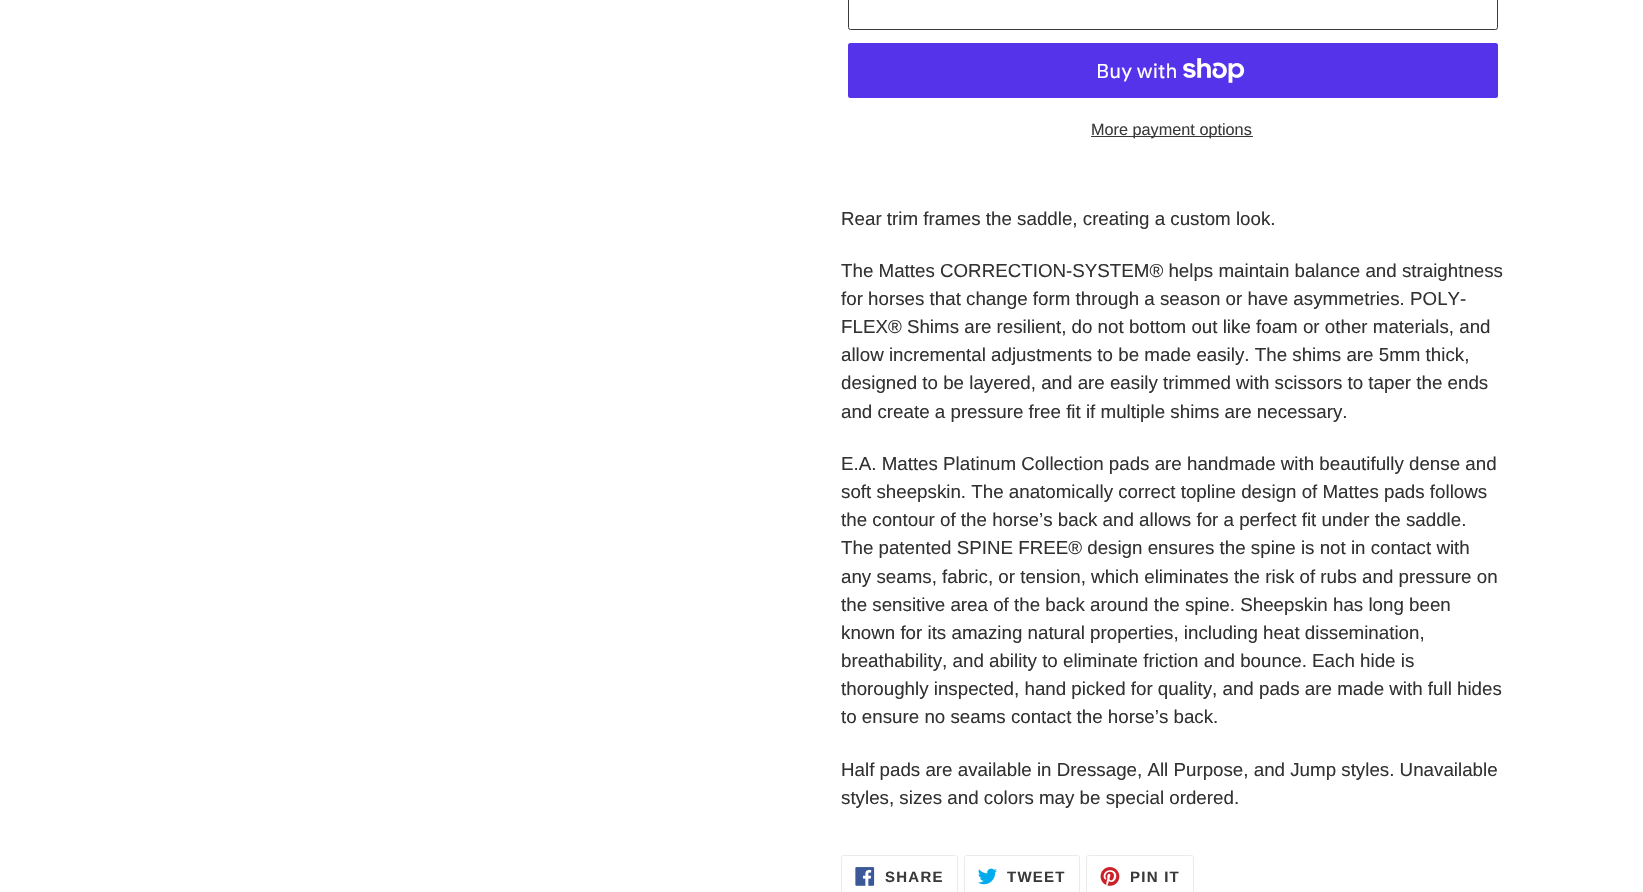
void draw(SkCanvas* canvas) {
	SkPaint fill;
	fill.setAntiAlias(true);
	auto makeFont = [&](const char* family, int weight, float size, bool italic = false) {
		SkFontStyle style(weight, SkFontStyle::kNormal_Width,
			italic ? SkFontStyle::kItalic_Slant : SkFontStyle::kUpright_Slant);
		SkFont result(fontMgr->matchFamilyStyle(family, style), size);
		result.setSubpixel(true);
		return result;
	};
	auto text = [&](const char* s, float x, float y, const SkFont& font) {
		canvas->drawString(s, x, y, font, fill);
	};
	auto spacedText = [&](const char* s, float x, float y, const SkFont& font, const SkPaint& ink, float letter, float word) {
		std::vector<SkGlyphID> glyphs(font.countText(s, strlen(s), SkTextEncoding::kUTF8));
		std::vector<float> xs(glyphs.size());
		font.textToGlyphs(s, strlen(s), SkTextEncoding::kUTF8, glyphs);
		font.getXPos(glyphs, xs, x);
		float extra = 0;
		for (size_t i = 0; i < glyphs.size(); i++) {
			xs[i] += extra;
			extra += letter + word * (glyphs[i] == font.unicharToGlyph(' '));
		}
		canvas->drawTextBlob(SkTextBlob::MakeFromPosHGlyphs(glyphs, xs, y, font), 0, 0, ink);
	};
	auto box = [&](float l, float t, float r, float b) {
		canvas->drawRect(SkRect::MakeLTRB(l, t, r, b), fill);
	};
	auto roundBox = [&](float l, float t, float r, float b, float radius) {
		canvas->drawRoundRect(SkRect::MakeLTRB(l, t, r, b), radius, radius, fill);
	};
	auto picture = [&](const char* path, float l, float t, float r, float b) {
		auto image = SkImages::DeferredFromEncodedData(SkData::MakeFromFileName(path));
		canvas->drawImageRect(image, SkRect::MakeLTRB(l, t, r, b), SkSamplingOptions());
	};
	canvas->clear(0xFFFFFFFF);
	fill.setStyle(SkPaint::kStroke_Style);
	fill.setStrokeWidth(1);
	fill.setColor(0xFF3A3A3A);
	canvas->drawRoundRect(SkRect::MakeLTRB(848.5f, -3.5f, 1497.5f, 29.5f), 2, 2, fill);
	fill.setStyle(SkPaint::kFill_Style);
	fill.setColor(0xFF5433EB);
	roundBox(848, 43, 1498, 98, 2.5f);
	picture("image0.png", 1183, 58, 1245, 83);
	fill.setColor(0xFF3A3A3A);
	box(1091, 136, 1253, 137);
	fill.setStyle(SkPaint::kStroke_Style);
	fill.setColor(0xFFEBEBEB);
	canvas->drawRoundRect(SkRect::MakeLTRB(841.5f, 855.5f, 957.5f, 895.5f), 2, 2, fill);
	picture("image1.png", 855, 867, 875, 886);
	canvas->drawRoundRect(SkRect::MakeLTRB(964.5f, 855.5f, 1079.5f, 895.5f), 2, 2, fill);
	picture("image2.png", 978, 868, 997, 885);
	canvas->drawRoundRect(SkRect::MakeLTRB(1086.5f, 855.5f, 1193.5f, 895.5f), 2, 2, fill);
	picture("image3.png", 1100, 867, 1120, 886);
	auto font1 = makeFont("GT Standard", 400, 20);
	fill.setStyle(SkPaint::kFill_Style);
	fill.setColor(0xFFFFFFFF);
	text("Buy with", 1096, 78, font1);
	auto font2 = makeFont("Liberation Sans", 400, 16.25f);
	fill.setColor(0xFF3A3A3A);
	text("More payment options", 1091, 135, font2);
	auto font3 = makeFont("Liberation Sans", 400, 18.75f);
	fill.setColor(0xFF333232);
	text("Rear trim frames the saddle, creating a custom look.", 841, 225, font3);
	text("The Mattes CORRECTION-SYSTEM® helps maintain balance and straightness", 841, 277, font3);
	text("for horses that change form through a season or have asymmetries. POLY-", 841, 305, font3);
	text("FLEX® Shims are resilient, do not bottom out like foam or other materials, and", 841, 333, font3);
	text("allow incremental adjustments to be made easily. The shims are 5mm thick,", 841, 361, font3);
	text("designed to be layered, and are easily trimmed with scissors to taper the ends", 841, 389, font3);
	text("and create a pressure free fit if multiple shims are necessary.", 841, 418, font3);
	text("E.A. Mattes Platinum Collection pads are handmade with beautifully dense and", 841, 470, font3);
	text("soft sheepskin. The anatomically correct topline design of Mattes pads follows", 841, 498, font3);
	text("the contour of the horse’s back and allows for a perfect fit under the saddle.", 841, 526, font3);
	text("The patented SPINE FREE® design ensures the spine is not in contact with", 841, 554, font3);
	text("any seams, fabric, or tension, which eliminates the risk of rubs and pressure on", 841, 583, font3);
	text("the sensitive area of the back around the spine. Sheepskin has long been", 841, 611, font3);
	text("known for its amazing natural properties, including heat dissemination,", 841, 639, font3);
	text("breathability, and ability to eliminate friction and bounce. Each hide is", 841, 667, font3);
	text("thoroughly inspected, hand picked for quality, and pads are made with full hides", 841, 695, font3);
	text("to ensure no seams contact the horse’s back.", 841, 723, font3);
	text("Half pads are available in Dressage, All Purpose, and Jump styles. Unavailable", 841, 776, font3);
	text("styles, sizes and colors may be special ordered.", 841, 804, font3);
	auto font4 = makeFont("Liberation Sans", 700, 15);
	fill.setColor(0xFF3A3A3A);
	spacedText("SHARE", 885, 882, font4, fill, 1.25f, 0);
	spacedText("TWEET", 1007, 882, font4, fill, 1.25f, 0);
	spacedText("PIN IT", 1130, 882, font4, fill, 1.25f, 0);
}
